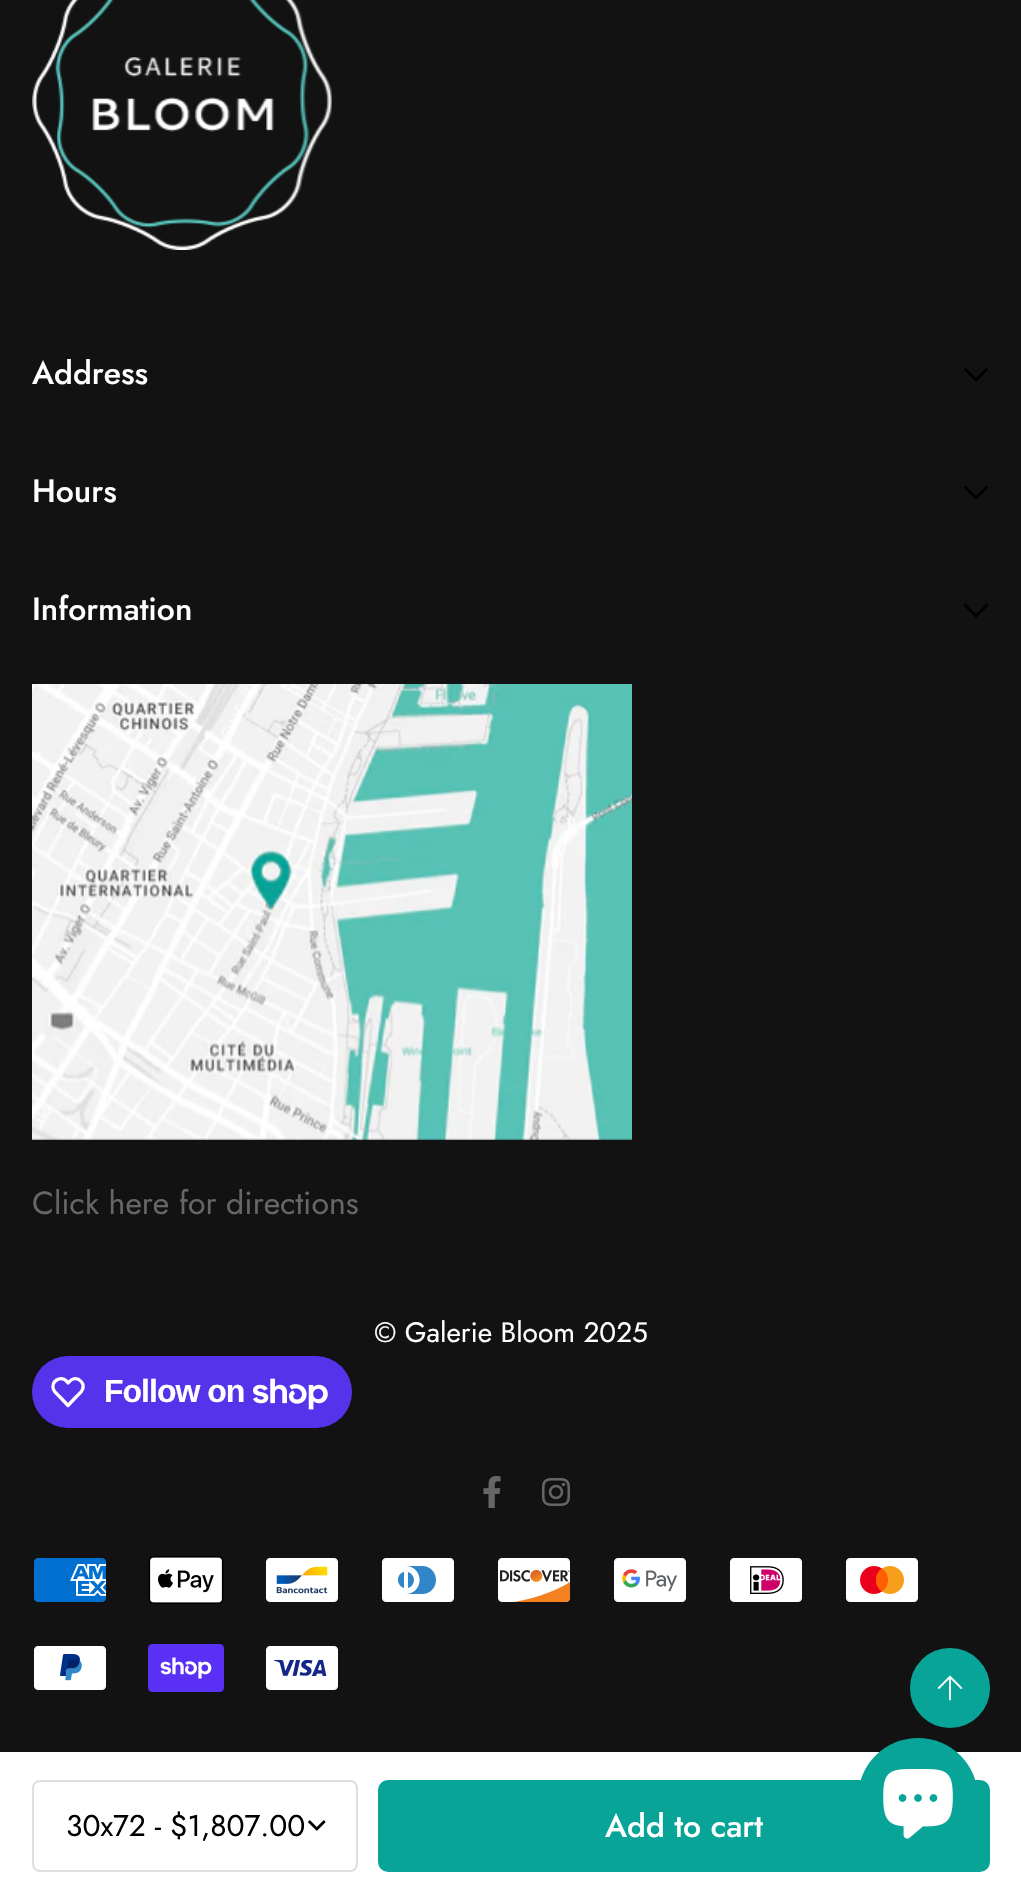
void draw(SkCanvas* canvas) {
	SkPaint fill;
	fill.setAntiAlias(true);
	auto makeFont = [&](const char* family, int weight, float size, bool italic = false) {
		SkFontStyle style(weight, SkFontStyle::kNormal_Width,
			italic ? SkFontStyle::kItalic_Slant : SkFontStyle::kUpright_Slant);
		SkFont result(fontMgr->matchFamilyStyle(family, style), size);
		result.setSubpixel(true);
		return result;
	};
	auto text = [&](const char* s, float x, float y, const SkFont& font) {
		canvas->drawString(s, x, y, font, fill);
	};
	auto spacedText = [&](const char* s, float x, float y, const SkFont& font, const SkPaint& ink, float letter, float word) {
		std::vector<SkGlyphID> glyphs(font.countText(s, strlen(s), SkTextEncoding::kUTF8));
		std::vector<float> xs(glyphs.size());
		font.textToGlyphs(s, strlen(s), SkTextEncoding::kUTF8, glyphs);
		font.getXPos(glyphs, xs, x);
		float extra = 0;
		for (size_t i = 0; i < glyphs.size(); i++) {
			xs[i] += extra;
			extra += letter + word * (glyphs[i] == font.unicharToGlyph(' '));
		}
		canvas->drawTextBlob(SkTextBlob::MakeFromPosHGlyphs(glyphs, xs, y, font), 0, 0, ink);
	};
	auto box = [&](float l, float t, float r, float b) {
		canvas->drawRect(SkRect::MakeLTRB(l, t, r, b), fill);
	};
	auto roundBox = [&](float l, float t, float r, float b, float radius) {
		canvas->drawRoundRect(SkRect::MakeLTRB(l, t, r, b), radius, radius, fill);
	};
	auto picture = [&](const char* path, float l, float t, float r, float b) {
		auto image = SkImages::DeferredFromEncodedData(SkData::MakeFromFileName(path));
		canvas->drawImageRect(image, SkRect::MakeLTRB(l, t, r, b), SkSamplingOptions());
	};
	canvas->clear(0xFFFFFFFF);
	fill.setColor(0xFF121212);
	box(0, 0, 1021, 1752);
	picture("image0.png", 32, 0, 332, 250);
	picture("image1.png", 964, 368, 988, 382);
	picture("image1.png", 964, 486, 988, 500);
	picture("image1.png", 964, 604, 988, 618);
	picture("image2.png", 32, 684, 632, 1140);
	fill.setColor(0xFF5433EB);
	roundBox(32, 1356, 352, 1428, 36);
	fill.setStyle(SkPaint::kStroke_Style);
	fill.setStrokeWidth(3.3f);
	fill.setStrokeJoin(SkPaint::kRound_Join);
	fill.setColor(0xFFFFFFFF);
	canvas->drawPath(SkPathBuilder().moveTo(66.5f, 1381).lineTo(68, 1383).cubicTo(69.5f, 1381.5f, 71, 1379.5f, 73, 1379).cubicTo(79, 1377, 85, 1383.5f, 82.5f, 1389.5f).cubicTo(81.5f, 1392.5f, 78.5f, 1394.5f, 76.5f, 1396.5f).lineTo(68, 1405.5f).lineTo(59.5f, 1396.5f).cubicTo(57.5f, 1394.5f, 54.5f, 1392.5f, 53.5f, 1389.5f).cubicTo(50.5f, 1381.5f, 60.5f, 1375, 66.5f, 1381).close().detach(), fill);
	picture("image3.png", 253, 1378, 328, 1410);
	picture("image4.png", 483, 1476, 501, 1508);
	picture("image5.png", 542, 1478, 570, 1506);
	picture("image6.png", 34, 1558, 106, 1602);
	picture("image7.png", 148, 1556, 224, 1604);
	picture("image8.png", 266, 1558, 338, 1602);
	picture("image9.png", 382, 1558, 454, 1602);
	picture("image10.png", 498, 1558, 571, 1602);
	picture("image11.png", 614, 1558, 686, 1602);
	picture("image12.png", 730, 1558, 802, 1602);
	picture("image13.png", 846, 1558, 918, 1602);
	picture("image14.png", 34, 1646, 106, 1690);
	picture("image15.png", 148, 1644, 224, 1692);
	picture("image16.png", 266, 1646, 338, 1690);
	fill.setStyle(SkPaint::kFill_Style);
	fill.setColor(0xFF08A498);
	canvas->drawCircle(950, 1688, 39, fill);
	fill.setStyle(SkPaint::kStroke_Style);
	fill.setStrokeWidth(2);
	fill.setStrokeJoin(SkPaint::kMiter_Join);
	canvas->drawCircle(950, 1688, 39, fill);
	picture("image17.png", 937, 1675, 963, 1701);
	picture("image18.png", 308, 1820, 326, 1831);
	fill.setColor(0xFFDEDEDE);
	canvas->drawRoundRect(SkRect::MakeLTRB(33, 1781, 357, 1871), 7, 7, fill);
	fill.setStyle(SkPaint::kFill_Style);
	fill.setColor(0xFF08A498);
	canvas->drawRoundRect(SkRect::MakeLTRB(379, 1781, 989, 1871), 9, 9, fill);
	fill.setStyle(SkPaint::kStroke_Style);
	canvas->drawRoundRect(SkRect::MakeLTRB(379, 1781, 989, 1871), 9, 9, fill);
	fill.setStyle(SkPaint::kFill_Style);
	canvas->drawCircle(918, 1798, 60, fill);
	picture("image19.png", 883, 1769, 953, 1839);
	auto font1 = makeFont("Jost", 500, 32);
	fill.setColor(0xFFFFFFFF);
	text("Address", 32, 384, font1);
	text("Hours", 32, 502, font1);
	text("Information", 32, 620, font1);
	auto font2 = makeFont("Jost", 400, 32);
	fill.setColor(0xFF666666);
	text("Click here for directions", 32, 1214, font2);
	auto font3 = makeFont("Jost", 400, 28);
	fill.setColor(0xFFFFFFFF);
	text("© Galerie Bloom 2025", 374, 1342, font3);
	auto font4 = makeFont("Liberation Sans", 700, 32);
	spacedText("Follow on", 104, 1402, font4, fill, -1, 0);
	auto font5 = makeFont("Jost", 400, 30);
	fill.setColor(0xFF000000);
	text("30x72 - $1,807.00", 66, 1836, font5);
	fill.setColor(0xFFFFFFFF);
	text("Add to cart", 605, 1837, font1);
}
